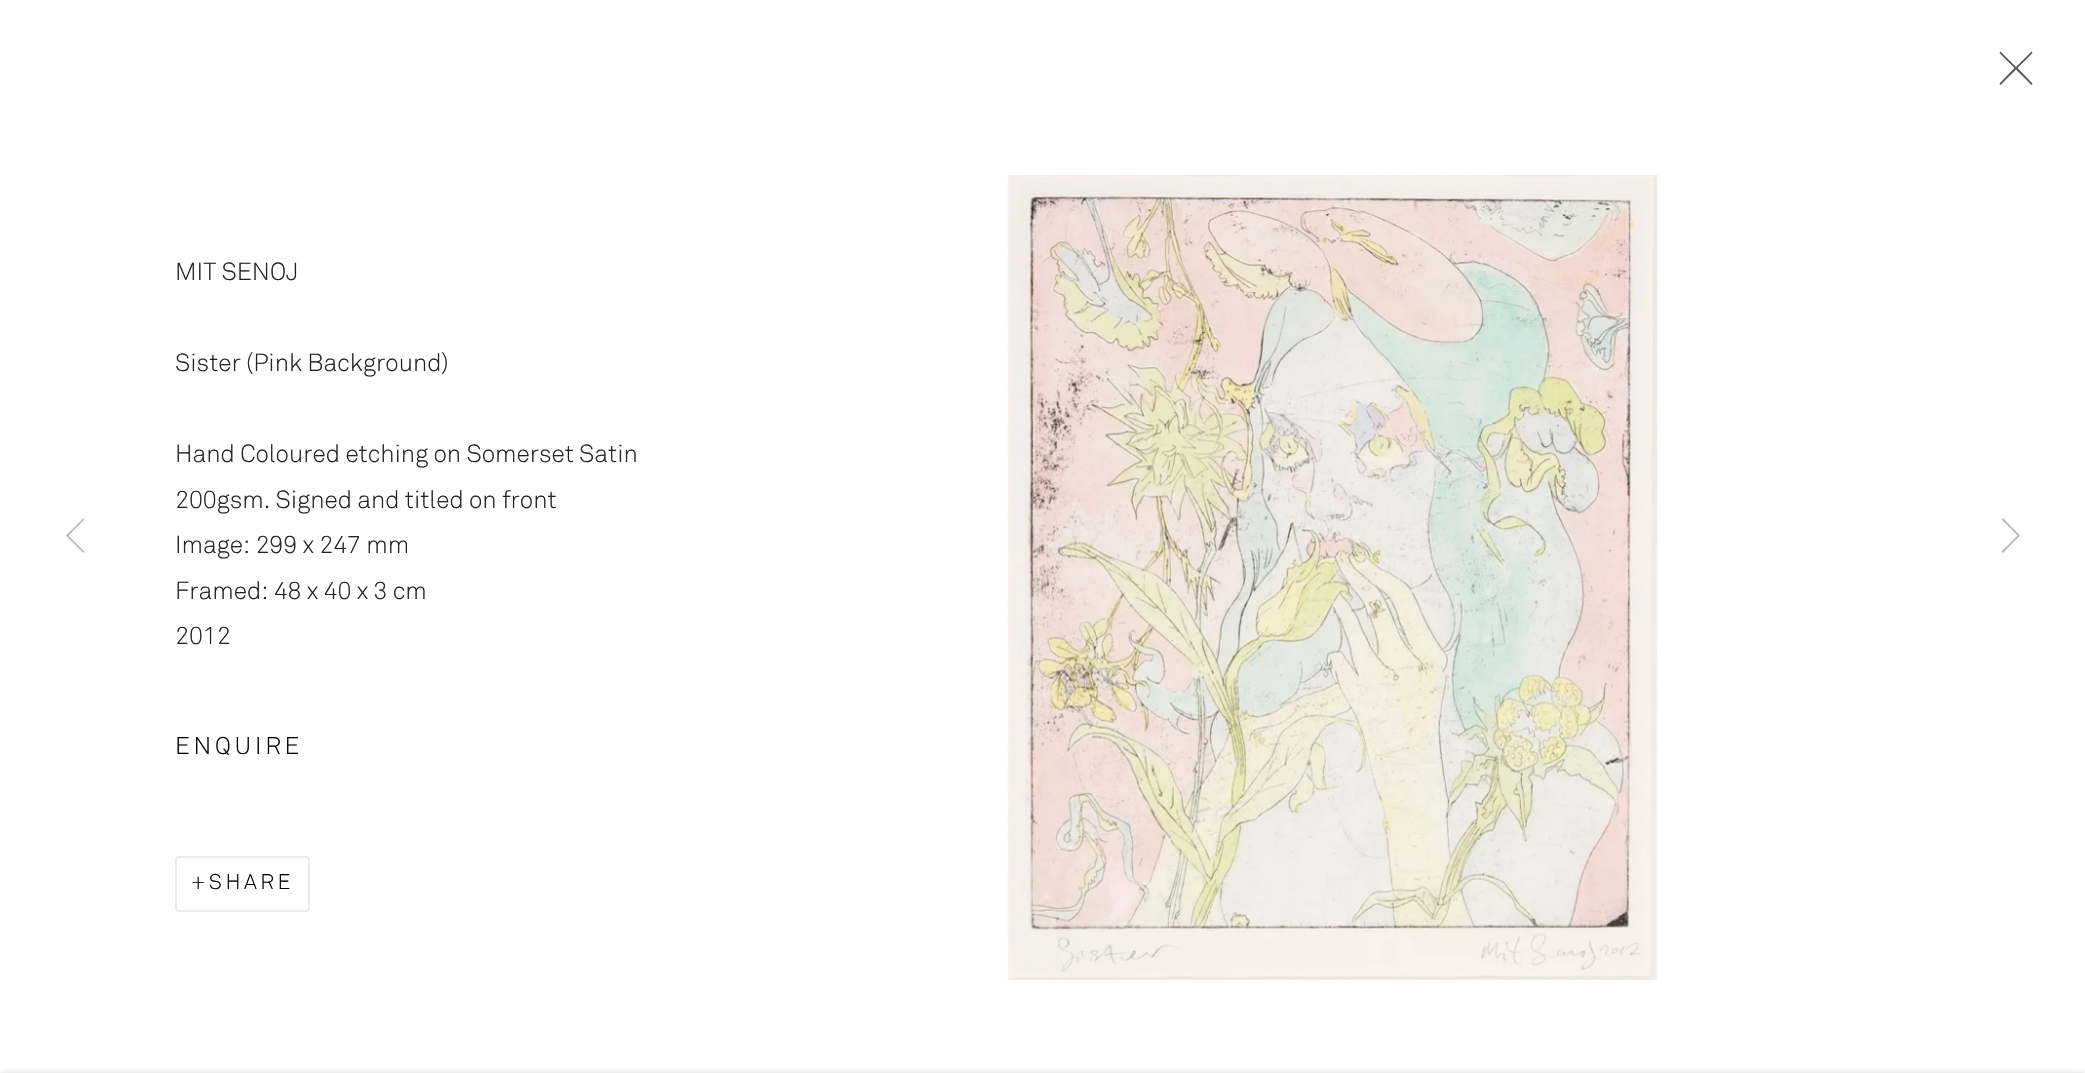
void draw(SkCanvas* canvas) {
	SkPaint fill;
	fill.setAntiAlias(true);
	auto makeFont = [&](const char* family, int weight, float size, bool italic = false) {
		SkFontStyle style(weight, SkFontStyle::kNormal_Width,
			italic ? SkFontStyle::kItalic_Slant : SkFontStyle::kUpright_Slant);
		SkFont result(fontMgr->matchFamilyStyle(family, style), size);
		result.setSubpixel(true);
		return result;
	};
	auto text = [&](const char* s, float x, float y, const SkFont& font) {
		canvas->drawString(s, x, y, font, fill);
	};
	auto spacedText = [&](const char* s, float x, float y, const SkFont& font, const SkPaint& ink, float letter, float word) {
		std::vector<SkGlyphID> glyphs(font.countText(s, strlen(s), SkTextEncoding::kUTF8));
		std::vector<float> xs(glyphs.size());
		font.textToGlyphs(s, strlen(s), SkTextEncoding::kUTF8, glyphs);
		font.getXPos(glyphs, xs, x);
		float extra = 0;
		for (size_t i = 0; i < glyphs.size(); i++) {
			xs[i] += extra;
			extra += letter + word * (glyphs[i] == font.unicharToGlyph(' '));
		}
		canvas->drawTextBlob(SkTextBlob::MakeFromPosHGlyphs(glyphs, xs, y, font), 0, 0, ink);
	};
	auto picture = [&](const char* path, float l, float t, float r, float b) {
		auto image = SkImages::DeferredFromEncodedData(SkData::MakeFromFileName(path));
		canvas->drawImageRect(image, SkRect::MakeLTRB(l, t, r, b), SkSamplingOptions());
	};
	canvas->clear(0xFFFFFFFF);
	fill.setColor(0xFF555555);
	canvas->drawPath(SkPathBuilder().moveTo(2032.5f, 53).lineTo(2031.5f, 51.5f).lineTo(2016, 67).lineTo(2000.5f, 51.5f).lineTo(1999.5f, 53).lineTo(2014.5f, 68).lineTo(1999.5f, 83.5f).lineTo(2000.5f, 85).lineTo(2016, 69.5f).lineTo(2031.5f, 85).lineTo(2032.5f, 83.5f).lineTo(2017.5f, 68).close().detach(), fill);
	fill.setStyle(SkPaint::kStroke_Style);
	fill.setStrokeWidth(2);
	fill.setColor(0xFFEBEBEB);
	canvas->drawRoundRect(SkRect::MakeLTRB(176, 857, 309, 911), 3, 3, fill);
	picture("image0.png", 1007, 175, 1658, 980);
	fill.setStyle(SkPaint::kFill_Style);
	fill.setColor(0xFFB9B9B9);
	canvas->drawPath(SkPathBuilder().moveTo(67.5f, 537).lineTo(83.5f, 553).lineTo(84.5f, 551.5f).lineTo(68.5f, 535.5f).lineTo(84.5f, 519.5f).lineTo(83.5f, 518).lineTo(66, 535.5f).close().detach(), fill);
	canvas->drawPath(SkPathBuilder().moveTo(2020, 535.5f).lineTo(2003, 518).lineTo(2001.5f, 519.5f).lineTo(2017.5f, 535.5f).lineTo(2001.5f, 551.5f).lineTo(2003, 553).close().detach(), fill);
	fill.setColor(0x3B000000);
	fill.setMaskFilter(SkMaskFilter::MakeBlur(kNormal_SkBlurStyle, 4.5f));
	canvas->drawRect(SkRect::MakeLTRB(0, 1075, 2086, 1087), fill);
	fill.setMaskFilter(nullptr);
	auto font1 = makeFont("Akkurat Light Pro", 300, 24.5f);
	fill.setColor(0xFF222222);
	text("MIT SENOJ", 175, 280, font1);
	text("Sister (Pink Background)", 175, 371, font1);
	text("Hand Coloured etching on Somerset Satin", 175, 462, font1);
	text("200gsm. Signed and titled on front", 175, 508, font1);
	text("Image: 299 x 247 mm", 175, 553, font1);
	text("Framed: 48 x 40 x 3 cm", 175, 599, font1);
	text("2012", 175, 644, font1);
	auto font2 = makeFont("Akkurat Light Pro", 300, 24);
	fill.setColor(0xFF000000);
	spacedText("ENQUIRE", 175, 754, font2, fill, 3.75f, 0);
	auto font3 = makeFont("Akkurat Light Pro", 300, 21);
	spacedText("+SHARE", 191, 889, font3, fill, 3.5f, 0);
}
